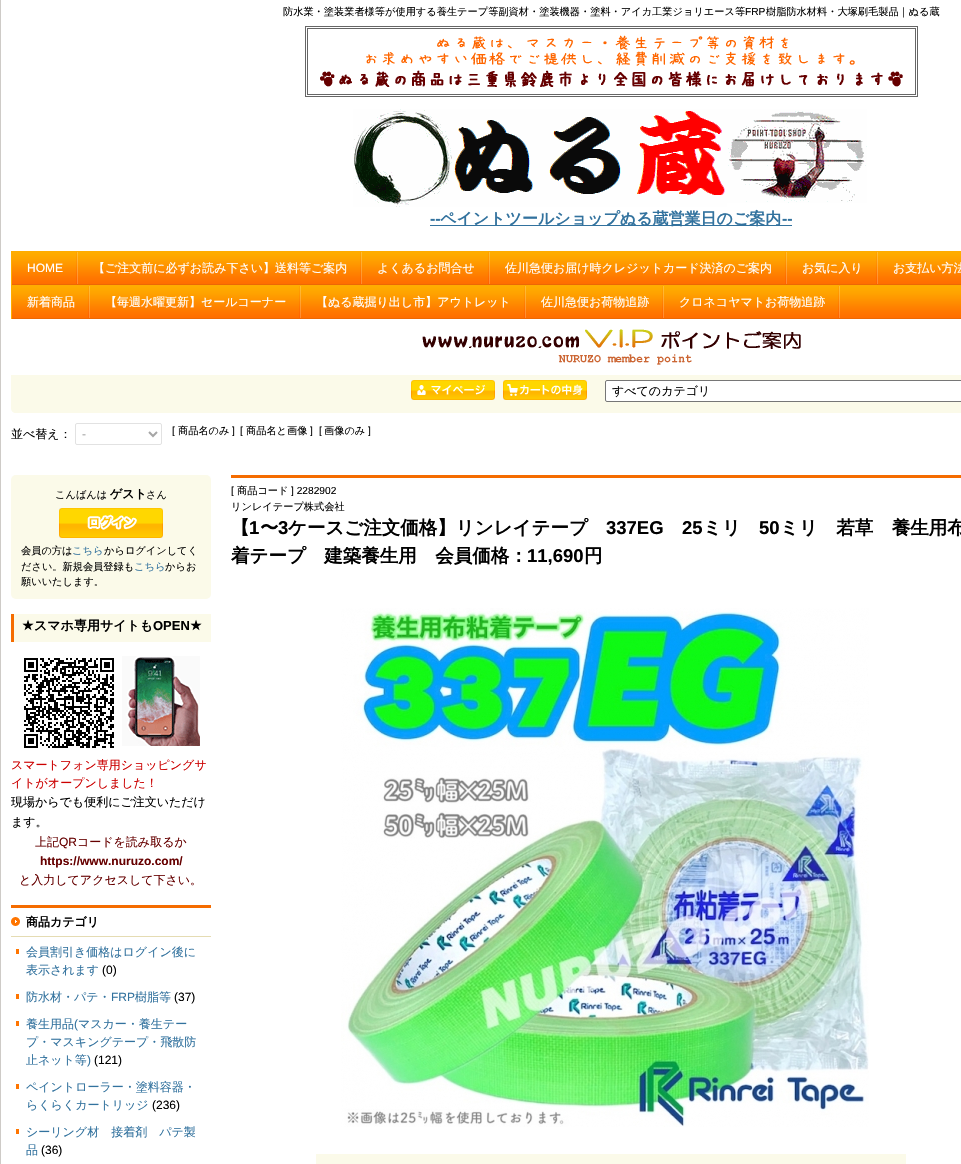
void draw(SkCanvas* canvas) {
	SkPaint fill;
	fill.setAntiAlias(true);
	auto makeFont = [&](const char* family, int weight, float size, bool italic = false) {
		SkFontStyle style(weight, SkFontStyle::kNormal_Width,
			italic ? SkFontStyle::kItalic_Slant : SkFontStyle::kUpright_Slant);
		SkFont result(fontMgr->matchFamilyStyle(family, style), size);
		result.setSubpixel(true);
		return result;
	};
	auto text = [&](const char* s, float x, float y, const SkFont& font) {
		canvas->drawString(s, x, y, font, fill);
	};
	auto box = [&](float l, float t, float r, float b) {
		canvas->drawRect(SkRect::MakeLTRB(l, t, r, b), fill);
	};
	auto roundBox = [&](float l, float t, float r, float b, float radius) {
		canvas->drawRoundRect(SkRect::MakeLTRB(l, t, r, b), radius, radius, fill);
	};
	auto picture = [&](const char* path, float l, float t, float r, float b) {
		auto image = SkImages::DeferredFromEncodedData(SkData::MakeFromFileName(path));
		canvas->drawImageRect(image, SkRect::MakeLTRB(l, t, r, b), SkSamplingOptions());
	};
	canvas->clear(0xFFFFFFFF);
	fill.setColor(0xFFCECBC7);
	box(0, 0, 1, 1164);
	fill.setStyle(SkPaint::kStroke_Style);
	fill.setStrokeWidth(1);
	fill.setColor(0xFF666666);
	canvas->drawRect(SkRect::MakeLTRB(305.5f, 26.5f, 917.5f, 96.5f), fill);
	canvas->drawRect(SkRect::MakeLTRB(307.5f, 28.5f, 915.5f, 94.5f), fill);
	picture("image0.png", 320, 35, 903, 88);
	picture("image1.png", 353, 109, 867, 207);
	fill.setStyle(SkPaint::kFill_Style);
	fill.setColor(0xFF32729E);
	box(430, 225, 792, 226);
	picture("image2.png", 12, 252, 961, 284);
	fill.setColor(0xFFFFAC00);
	box(11, 251, 961, 252);
	fill.setColor(0xFFEC6805);
	box(11, 284, 961, 285);
	fill.setColor(0xFFFFAC00);
	box(11, 251, 12, 285);
	picture("image3.png", 76, 252, 78, 284);
	picture("image3.png", 360, 252, 362, 284);
	picture("image3.png", 488, 252, 490, 284);
	picture("image3.png", 785, 252, 787, 284);
	picture("image3.png", 876, 252, 878, 284);
	picture("image2.png", 12, 286, 961, 318);
	box(11, 285, 961, 286);
	fill.setColor(0xFFEC6805);
	box(11, 318, 961, 319);
	fill.setColor(0xFFFFAC00);
	box(11, 285, 12, 319);
	picture("image3.png", 88, 286, 90, 318);
	picture("image3.png", 299, 286, 301, 318);
	picture("image3.png", 524, 286, 526, 318);
	picture("image3.png", 662, 286, 664, 318);
	picture("image3.png", 838, 286, 840, 318);
	picture("image4.png", 422, 329, 801, 365);
	fill.setColor(0xFFFBFAE9);
	canvas->drawPath(SkPathBuilder().moveTo(11, 375).lineTo(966, 375).lineTo(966, 408).cubicTo(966, 411, 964, 413, 961, 413).lineTo(16, 413).cubicTo(13, 413, 11, 411, 11, 408).close().detach(), fill);
	picture("image5.png", 411, 380, 495, 400);
	picture("image6.png", 503, 380, 587, 400);
	fill.setColor(0xFFFFFFFF);
	canvas->drawRoundRect(SkRect::MakeLTRB(605.5f, 380.5f, 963.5f, 401.5f), 1.5f, 1.5f, fill);
	fill.setStyle(SkPaint::kStroke_Style);
	fill.setColor(0xFF767676);
	canvas->drawRoundRect(SkRect::MakeLTRB(605.5f, 380.5f, 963.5f, 401.5f), 1.5f, 1.5f, fill);
	fill.setColor(0xFFE2E2E2);
	canvas->drawRoundRect(SkRect::MakeLTRB(75.5f, 423.5f, 161.5f, 444.5f), 1.5f, 1.5f, fill);
	fill.setStrokeWidth(2);
	fill.setColor(0xFFA6A6A6);
	canvas->drawPath(SkPathBuilder().moveTo(149, 432).lineTo(153, 436).lineTo(157, 432).detach(), fill);
	fill.setStyle(SkPaint::kFill_Style);
	fill.setColor(0xFFFBFAE9);
	roundBox(11, 475, 211, 599, 5);
	picture("image7.png", 59, 508, 163, 538);
	box(14, 614, 211, 642);
	fill.setColor(0xFFF56C00);
	box(11, 614, 14, 642);
	picture("image8.png", 24, 656, 200, 748);
	picture("image9.png", 11, 917, 20, 926);
	box(11, 905, 211, 908);
	fill.setColor(0xFFE5DCB3);
	box(11, 936, 211, 937);
	fill.setColor(0xFFFF7500);
	box(16, 949, 19, 954);
	box(16, 994, 19, 999);
	box(16, 1021, 19, 1026);
	box(16, 1084, 19, 1089);
	box(16, 1129, 19, 1134);
	fill.setColor(0xFFF56C00);
	box(231, 475, 961, 478);
	picture("image10.png", 341, 608, 869, 1127);
	fill.setColor(0xFFFBFAE9);
	box(316, 1154, 906, 1164);
	auto font1 = makeFont("WenQuanYi Zen Hei", 500, 10.2f);
	fill.setColor(0xFF000000);
	text("防水業・塗装業者様等が使用する養生テープ等副資材・塗装機器・塗料・アイカ工業ジョリエース等", 283, 15, font1);
	auto font2 = makeFont("Liberation Sans", 400, 10.2f);
	text("FRP", 745, 15, font2);
	text("樹脂防水材料・大塚刷毛製品｜ぬる蔵", 766, 15, font1);
	auto font3 = makeFont("Liberation Sans", 700, 16);
	fill.setColor(0xFF32729E);
	text("--", 430, 224, font3);
	auto font4 = makeFont("WenQuanYi Zen Hei", 700, 16);
	text("ペイントツールショップぬる蔵営業日のご案内", 440, 224, font4);
	text("--", 782, 224, font3);
	auto font5 = makeFont("Liberation Sans", 400, 12);
	fill.setColor(0xFFFFFFFF);
	text("HOME", 27, 272, font5);
	auto font6 = makeFont("WenQuanYi Zen Hei", 500, 12);
	text("【ご注文前に必ずお読み下さい】送料等ご案内", 93, 272, font6);
	text("よくあるお問合せ", 377, 272, font6);
	text("佐川急便お届け時クレジットカード決済のご案内", 505, 272, font6);
	text("お気に入り", 802, 272, font6);
	text("お支払い方法", 893, 272, font6);
	text("新着商品", 27, 306, font6);
	text("【毎週水曜更新】セールコーナー", 105, 306, font6);
	text("【ぬる蔵掘り出し市】アウトレット", 316, 306, font6);
	text("佐川急便お荷物追跡", 541, 306, font6);
	text("クロネコヤマトお荷物追跡", 679, 306, font6);
	fill.setColor(0xFF000000);
	text("すべてのカテゴリ", 612, 395, font6);
	text("並べ替え：", 11, 438, font6);
	fill.setColor(0xFFA6A6A6);
	text("-", 82, 438, font5);
	fill.setColor(0xFF000000);
	text("[", 172, 434, font2);
	text("商品名のみ", 178, 434, font1);
	text("]", 232, 434, font2);
	text("[", 240, 434, font2);
	text("商品名と画像", 246, 434, font1);
	text("]", 310, 434, font2);
	text("[", 319, 434, font2);
	text("画像のみ", 324, 434, font1);
	text("]", 368, 434, font2);
	text("こんばんは", 55, 498, font1);
	auto font7 = makeFont("WenQuanYi Zen Hei", 700, 12);
	text("ゲスト", 110, 498, font7);
	text("さん", 146, 498, font1);
	text("会員の方は", 21, 554, font1);
	fill.setColor(0xFF32729E);
	text("こちら", 72, 554, font1);
	fill.setColor(0xFF000000);
	text("からログインしてく", 104, 554, font1);
	text("ださい。新規会員登録も", 21, 570, font1);
	fill.setColor(0xFF32729E);
	text("こちら", 134, 570, font1);
	fill.setColor(0xFF000000);
	text("からお", 165, 570, font1);
	text("願いいたします。", 21, 585, font1);
	auto font8 = makeFont("DejaVu Sans", 700, 13);
	text("★", 22, 630, font8);
	auto font9 = makeFont("WenQuanYi Zen Hei", 700, 13);
	text("スマホ専用サイトも", 34, 630, font9);
	auto font10 = makeFont("Liberation Sans", 700, 13);
	text("OPEN", 153, 630, font10);
	text("★", 190, 630, font8);
	fill.setColor(0xFFCC0000);
	text("スマートフォン専用ショッピングサ", 11, 769, font6);
	text("イトがオープンしました！", 11, 787, font6);
	fill.setColor(0xFF000000);
	text("現場からでも便利にご注文いただけ", 11, 806, font6);
	text("ます。", 11, 826, font6);
	fill.setColor(0xFF660000);
	text("上記", 35, 846, font6);
	text("QR", 59, 846, font5);
	text("コードを読み取るか", 77, 846, font6);
	auto font11 = makeFont("Liberation Sans", 700, 12);
	text("https://www.nuruzo.com/", 40, 865, font11);
	text("と入力してアクセスして下さい。", 19, 884, font6);
	fill.setColor(0xFF000000);
	text("商品カテゴリ", 26, 926, font7);
	fill.setColor(0xFF32729E);
	text("会員割引き価格はログイン後に", 26, 956, font6);
	text("表示されます", 26, 974, font6);
	fill.setColor(0xFF000000);
	text("(0)", 102, 974, font5);
	fill.setColor(0xFF32729E);
	text("防水材・パテ・", 26, 1001, font6);
	text("FRP", 111, 1001, font5);
	text("樹脂等", 135, 1001, font6);
	fill.setColor(0xFF000000);
	text("(37)", 174, 1001, font5);
	fill.setColor(0xFF32729E);
	text("養生用品", 26, 1028, font6);
	text("(", 74, 1028, font5);
	text("マスカー・養生テー", 78, 1028, font6);
	text("プ・マスキングテープ・飛散防", 26, 1046, font6);
	text("止ネット等", 26, 1064, font6);
	text(")", 87, 1064, font5);
	fill.setColor(0xFF000000);
	text("(121)", 94, 1064, font5);
	fill.setColor(0xFF32729E);
	text("ペイントローラー・塗料容器・", 26, 1091, font6);
	text("らくらくカートリッジ", 26, 1109, font6);
	fill.setColor(0xFF000000);
	text("(236)", 152, 1109, font5);
	fill.setColor(0xFF32729E);
	text("シーリング材　接着剤　パテ製", 26, 1136, font6);
	text("品", 26, 1154, font6);
	fill.setColor(0xFF000000);
	text("(36)", 41, 1154, font5);
	text("[", 231, 494, font2);
	text("商品コード", 237, 494, font1);
	text("] 2282902", 291, 494, font2);
	text("リンレイテープ株式会社", 231, 510, font1);
	auto font12 = makeFont("WenQuanYi Zen Hei", 700, 18.5f);
	text("【", 231, 534, font12);
	auto font13 = makeFont("Liberation Sans", 700, 18.5f);
	text("1", 249, 534, font13);
	text("〜", 260, 534, font12);
	text("3", 278, 534, font13);
	text("ケースご注文価格】リンレイテープ", 288, 534, font12);
	text("337EG", 606, 534, font13);
	text("25", 682, 534, font13);
	text("ミリ", 703, 534, font12);
	text("50", 759, 534, font13);
	text("ミリ　若草　養生用布", 780, 534, font12);
	text("着テープ　建築養生用　会員価格：", 231, 562, font12);
	text("11,690", 527, 562, font13);
	text("円", 584, 562, font12);
}
